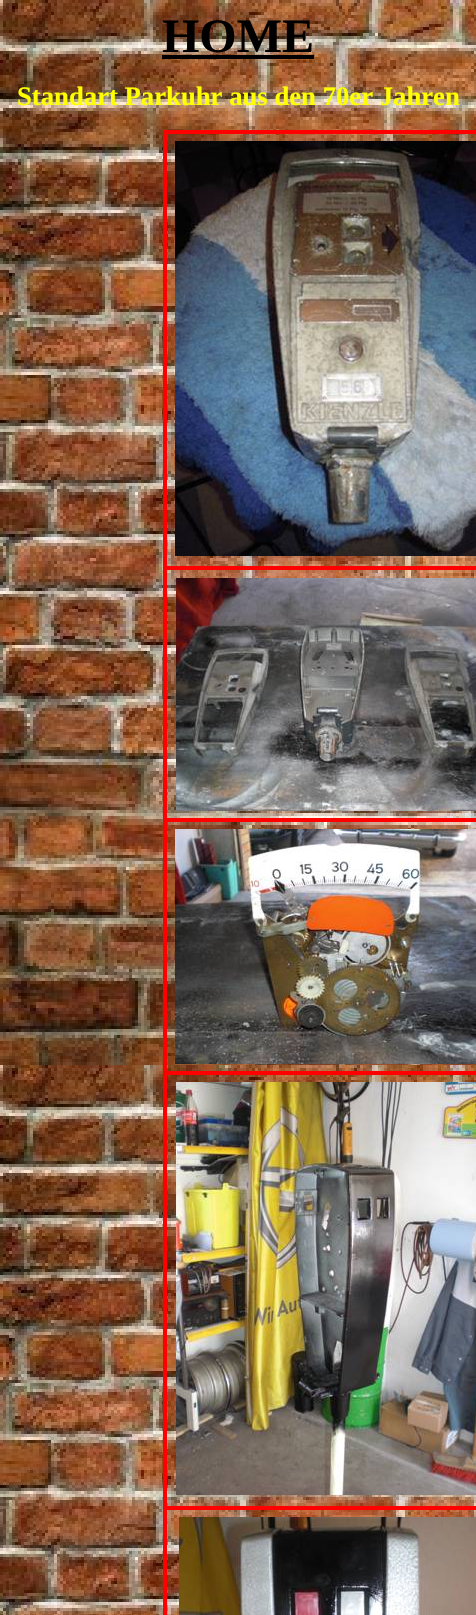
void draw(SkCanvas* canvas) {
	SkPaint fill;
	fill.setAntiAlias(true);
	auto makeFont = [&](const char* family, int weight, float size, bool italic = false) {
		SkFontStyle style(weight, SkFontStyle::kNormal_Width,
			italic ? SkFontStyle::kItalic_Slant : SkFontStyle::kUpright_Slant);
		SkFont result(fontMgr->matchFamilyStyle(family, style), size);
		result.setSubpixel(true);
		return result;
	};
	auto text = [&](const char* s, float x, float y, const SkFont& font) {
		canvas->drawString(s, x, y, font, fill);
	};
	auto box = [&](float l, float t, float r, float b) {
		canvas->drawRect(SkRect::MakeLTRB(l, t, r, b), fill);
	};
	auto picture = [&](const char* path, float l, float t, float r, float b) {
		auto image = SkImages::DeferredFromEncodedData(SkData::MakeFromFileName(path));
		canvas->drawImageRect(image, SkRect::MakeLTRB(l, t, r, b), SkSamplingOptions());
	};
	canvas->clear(0xFFFFFFFF);
	picture("image0.png", 0, 0, 476, 1615);
	fill.setColor(0xFF000000);
	box(162, 55, 314, 59);
	fill.setColor(0xFFFF0000);
	box(163, 130, 476, 134);
	box(163, 1506, 167, 1615);
	box(163, 1506, 476, 1510);
	box(163, 1071, 167, 1510);
	box(163, 1071, 476, 1075);
	box(163, 818, 167, 1075);
	box(163, 818, 476, 822);
	box(163, 566, 167, 822);
	box(163, 566, 476, 570);
	box(163, 130, 167, 570);
	picture("image1.png", 175, 141, 476, 556);
	picture("image2.png", 176, 578, 476, 811);
	picture("image3.png", 175, 829, 476, 1064);
	picture("image4.png", 176, 1082, 476, 1495);
	picture("image5.png", 179, 1517, 476, 1615);
	auto font1 = makeFont("Liberation Serif", 700, 48);
	fill.setColor(0xFF000000);
	text("HOME", 162, 52, font1);
	auto font2 = makeFont("Liberation Serif", 700, 26.7f);
	fill.setColor(0xFFFFFF00);
	text("Standart Parkuhr aus den 70er Jahren", 17, 105, font2);
}
